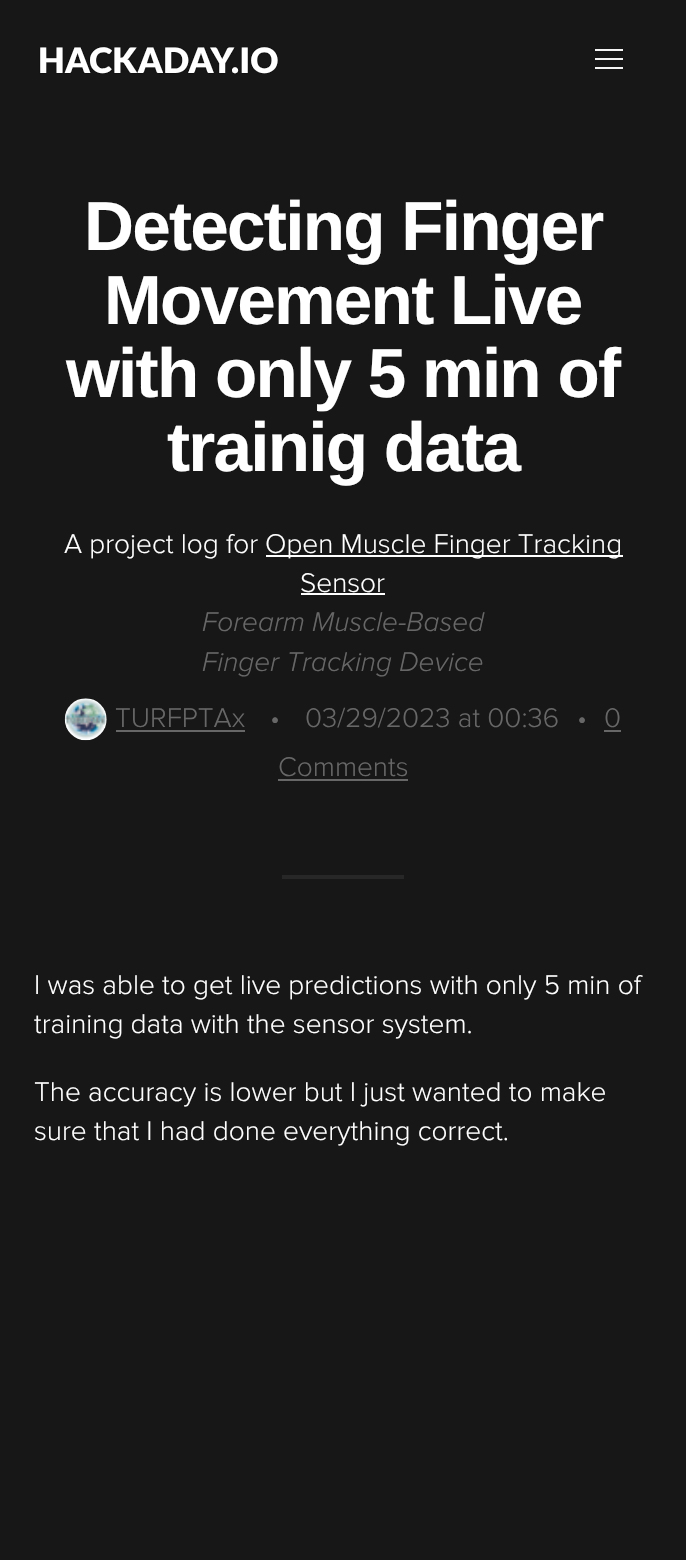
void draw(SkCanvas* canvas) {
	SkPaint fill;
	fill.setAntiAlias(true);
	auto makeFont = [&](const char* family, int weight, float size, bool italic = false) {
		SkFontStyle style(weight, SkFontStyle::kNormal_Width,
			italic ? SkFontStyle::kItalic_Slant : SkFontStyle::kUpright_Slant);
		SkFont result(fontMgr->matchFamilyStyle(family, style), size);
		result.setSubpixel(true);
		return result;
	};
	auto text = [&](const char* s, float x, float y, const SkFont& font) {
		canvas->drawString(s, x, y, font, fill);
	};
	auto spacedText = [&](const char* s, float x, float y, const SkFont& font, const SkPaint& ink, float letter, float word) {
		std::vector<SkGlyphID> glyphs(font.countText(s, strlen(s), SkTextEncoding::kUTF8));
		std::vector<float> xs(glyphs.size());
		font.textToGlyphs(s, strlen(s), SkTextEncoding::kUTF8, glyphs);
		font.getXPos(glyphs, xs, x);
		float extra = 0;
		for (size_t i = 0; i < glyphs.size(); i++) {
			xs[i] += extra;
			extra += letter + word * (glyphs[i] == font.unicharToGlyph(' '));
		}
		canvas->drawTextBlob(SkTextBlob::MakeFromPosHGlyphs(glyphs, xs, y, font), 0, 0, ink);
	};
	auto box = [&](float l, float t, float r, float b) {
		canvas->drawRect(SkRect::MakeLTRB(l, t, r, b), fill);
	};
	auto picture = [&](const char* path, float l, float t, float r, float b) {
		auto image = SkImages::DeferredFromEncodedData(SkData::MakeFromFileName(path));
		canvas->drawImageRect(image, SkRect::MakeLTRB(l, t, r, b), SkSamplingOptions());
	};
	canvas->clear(0xFF171717);
	picture("image0.png", 39, 46, 278, 74);
	fill.setColor(0xFFF5F5F5);
	box(595, 49, 623, 51);
	box(595, 58, 623, 60);
	box(595, 67, 623, 69);
	fill.setColor(0xFFFFFFFF);
	box(266, 555, 623, 557);
	box(301, 593, 385, 595);
	fill.setColor(0xFF000000);
	canvas->drawCircle(86, 719, 21, fill);
	picture("image1.png", 64, 698, 107, 741);
	fill.setColor(0xFF676767);
	box(116, 730, 245, 732);
	box(604, 730, 621, 732);
	box(278, 779, 408, 781);
	fill.setColor(0xFF272727);
	box(282, 875, 404, 879);
	auto font1 = makeFont("Liberation Sans", 700, 69.25f);
	fill.setColor(0xFFFFFFFF);
	spacedText("Detecting Finger", 84, 250, font1, fill, -1.75f, 0);
	spacedText("Movement Live", 104, 324, font1, fill, -1.75f, 0);
	spacedText("with only 5 min of", 66, 397, font1, fill, -1.75f, 0);
	spacedText("trainig data", 167, 471, font1, fill, -1.75f, 0);
	auto font2 = makeFont("Proxima Nova", 300, 28);
	text("A project log for", 64, 553, font2);
	text("Open Muscle Finger Tracking", 265, 553, font2);
	text("Sensor", 300, 592, font2);
	auto font3 = makeFont("Proxima Nova", 300, 28, true);
	fill.setColor(0xFF676767);
	text("Forearm Muscle-Based", 202, 631, font3);
	text("Finger Tracking Device", 202, 671, font3);
	text("TURFPTAx", 115, 727, font2);
	text("•", 270, 727, font2);
	text("03/29/2023 at 00:36", 305, 727, font2);
	text("•", 577, 727, font2);
	text("0", 604, 727, font2);
	text("Comments", 278, 776, font2);
	fill.setColor(0xFFFFFFFF);
	text("I was able to get live predictions with only 5 min of", 34, 994, font2);
	text("training data with the sensor system.", 34, 1033, font2);
	text("The accuracy is lower but I just wanted to make", 34, 1101, font2);
	text("sure that I had done everything correct.", 34, 1140, font2);
}
